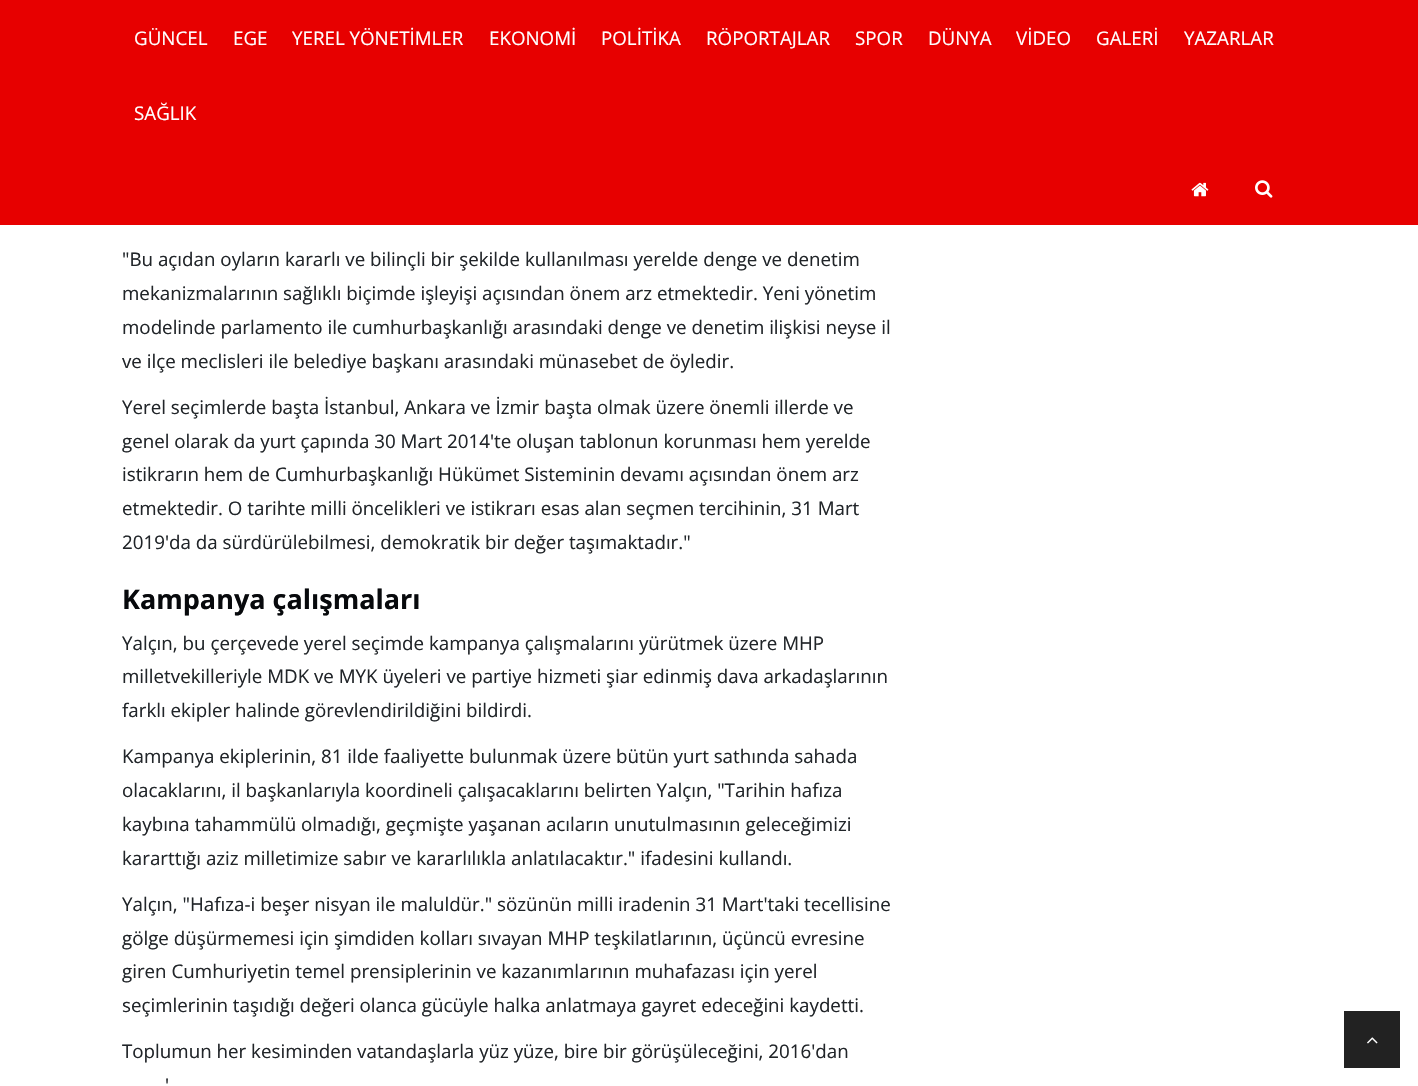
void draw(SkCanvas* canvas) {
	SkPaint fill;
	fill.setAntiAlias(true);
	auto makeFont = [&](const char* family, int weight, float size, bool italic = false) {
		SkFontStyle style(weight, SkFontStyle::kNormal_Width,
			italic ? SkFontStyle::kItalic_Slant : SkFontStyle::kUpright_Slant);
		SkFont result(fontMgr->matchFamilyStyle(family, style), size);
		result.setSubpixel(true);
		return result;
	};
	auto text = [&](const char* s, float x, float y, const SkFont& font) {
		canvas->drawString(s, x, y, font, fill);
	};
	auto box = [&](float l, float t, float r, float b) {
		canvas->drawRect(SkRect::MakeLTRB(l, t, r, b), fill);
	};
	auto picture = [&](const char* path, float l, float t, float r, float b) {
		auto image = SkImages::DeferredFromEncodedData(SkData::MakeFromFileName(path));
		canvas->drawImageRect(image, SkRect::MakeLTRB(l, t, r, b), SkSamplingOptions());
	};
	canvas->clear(0xFFFFFFFF);
	fill.setColor(0xFFE70000);
	box(0, 0, 1418, 225);
	picture("image0.png", 1191, 182, 1209, 197);
	picture("image1.png", 1255, 180, 1273, 198);
	fill.setColor(0xFF222222);
	box(1344, 1011, 1400, 1068);
	picture("image2.png", 1367, 1037, 1378, 1044);
	auto font1 = makeFont("Open Sans", 400, 18.75f);
	fill.setColor(0xFFFFFFFF);
	text("GÜNCEL", 134, 45, font1);
	text("EGE", 233, 45, font1);
	text("YEREL YÖNETİMLER", 292, 45, font1);
	text("EKONOMİ", 489, 45, font1);
	text("POLİTİKA", 601, 45, font1);
	text("RÖPORTAJLAR", 706, 45, font1);
	text("SPOR", 855, 45, font1);
	text("DÜNYA", 928, 45, font1);
	text("VİDEO", 1016, 45, font1);
	text("GALERİ", 1096, 45, font1);
	text("YAZARLAR", 1184, 45, font1);
	text("SAĞLIK", 134, 120, font1);
	fill.setColor(0xFF212529);
	text("\"Bu açıdan oyların kararlı ve bilinçli bir şekilde kullanılması yerelde denge ve denetim", 122, 266, font1);
	text("mekanizmalarının sağlıklı biçimde işleyişi açısından önem arz etmektedir. Yeni yönetim", 122, 300, font1);
	text("modelinde parlamento ile cumhurbaşkanlığı arasındaki denge ve denetim ilişkisi neyse il", 122, 334, font1);
	text("ve ilçe meclisleri ile belediye başkanı arasındaki münasebet de öyledir.", 122, 368, font1);
	text("Yerel seçimlerde başta İstanbul, Ankara ve İzmir başta olmak üzere önemli illerde ve", 122, 414, font1);
	text("genel olarak da yurt çapında 30 Mart 2014'te oluşan tablonun korunması hem yerelde", 122, 448, font1);
	text("istikrarın hem de Cumhurbaşkanlığı Hükümet Sisteminin devamı açısından önem arz", 122, 481, font1);
	text("etmektedir. O tarihte milli öncelikleri ve istikrarı esas alan seçmen tercihinin, 31 Mart", 122, 515, font1);
	text("2019'da da sürdürülebilmesi, demokratik bir değer taşımaktadır.\"", 122, 549, font1);
	auto font2 = makeFont("Open Sans", 700, 27);
	fill.setColor(0xFF07090C);
	text("Kampanya çalışmaları", 122, 609, font2);
	fill.setColor(0xFF212529);
	text("Yalçın, bu çerçevede yerel seçimde kampanya çalışmalarını yürütmek üzere MHP", 122, 650, font1);
	text("milletvekilleriyle MDK ve MYK üyeleri ve partiye hizmeti şiar edinmiş dava arkadaşlarının", 122, 683, font1);
	text("farklı ekipler halinde görevlendirildiğini bildirdi.", 122, 717, font1);
	text("Kampanya ekiplerinin, 81 ilde faaliyette bulunmak üzere bütün yurt sathında sahada", 122, 763, font1);
	text("olacaklarını, il başkanlarıyla koordineli çalışacaklarını belirten Yalçın, \"Tarihin hafıza", 122, 797, font1);
	text("kaybına tahammülü olmadığı, geçmişte yaşanan acıların unutulmasının geleceğimizi", 122, 831, font1);
	text("kararttığı aziz milletimize sabır ve kararlılıkla anlatılacaktır.\" ifadesini kullandı.", 122, 865, font1);
	text("Yalçın, \"Hafıza-i beşer nisyan ile maluldür.\" sözünün milli iradenin 31 Mart'taki tecellisine", 122, 911, font1);
	text("gölge düşürmemesi için şimdiden kolları sıvayan MHP teşkilatlarının, üçüncü evresine", 122, 945, font1);
	text("giren Cumhuriyetin temel prensiplerinin ve kazanımlarının muhafazası için yerel", 122, 978, font1);
	text("seçimlerinin taşıdığı değeri olanca gücüyle halka anlatmaya gayret edeceğini kaydetti.", 122, 1012, font1);
	text("Toplumun her kesiminden vatandaşlarla yüz yüze, bire bir görüşüleceğini, 2016'dan", 122, 1058, font1);
	text("'", 165, 1092, font1);
}
